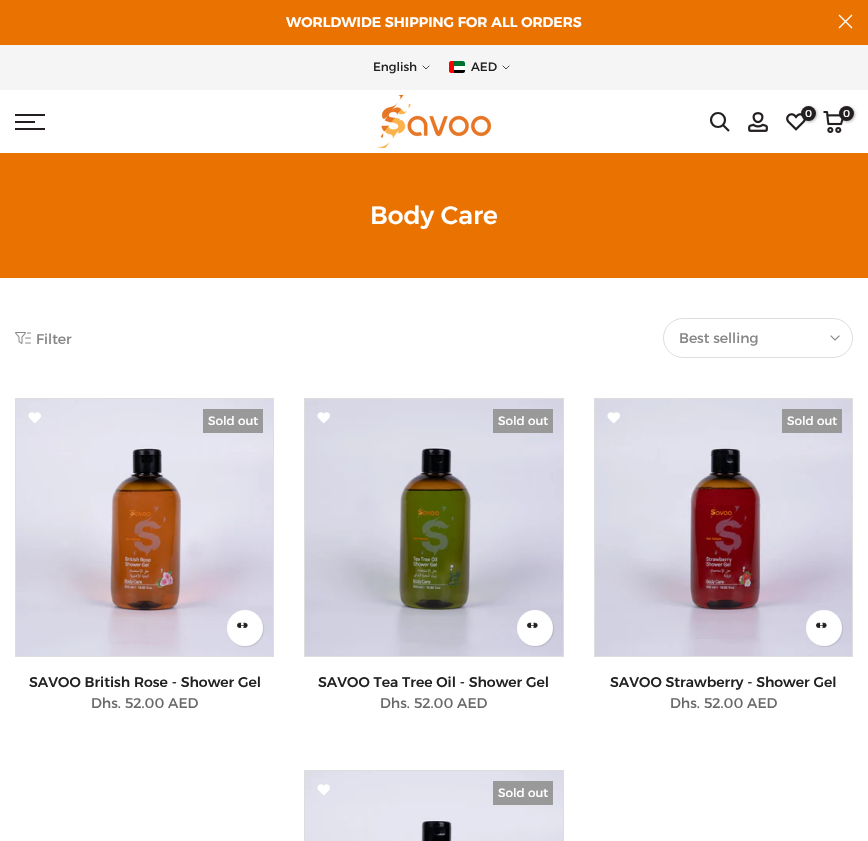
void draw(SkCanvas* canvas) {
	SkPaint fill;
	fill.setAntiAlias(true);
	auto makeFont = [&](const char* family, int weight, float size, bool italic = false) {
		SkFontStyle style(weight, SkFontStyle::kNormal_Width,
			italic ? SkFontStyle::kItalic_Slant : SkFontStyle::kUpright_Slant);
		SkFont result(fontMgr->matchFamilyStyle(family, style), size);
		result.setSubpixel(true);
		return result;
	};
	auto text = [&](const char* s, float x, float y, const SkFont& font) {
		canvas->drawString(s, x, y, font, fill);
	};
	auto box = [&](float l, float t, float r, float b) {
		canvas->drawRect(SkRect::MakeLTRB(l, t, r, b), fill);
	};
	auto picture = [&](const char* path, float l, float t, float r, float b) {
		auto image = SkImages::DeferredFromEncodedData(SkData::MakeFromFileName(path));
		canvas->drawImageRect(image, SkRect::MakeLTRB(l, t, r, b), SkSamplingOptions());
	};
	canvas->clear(0xFFFFFFFF);
	fill.setColor(0xFFE97200);
	box(0, 0, 868, 45);
	fill.setStyle(SkPaint::kStroke_Style);
	fill.setStrokeWidth(1.4f);
	fill.setColor(0xFFFFFFFF);
	canvas->drawPath(SkPathBuilder().moveTo(852, 15).lineTo(839, 28).moveTo(852, 28).lineTo(839, 15).detach(), fill);
	fill.setStyle(SkPaint::kFill_Style);
	fill.setColor(0xFFF5F5F5);
	box(0, 45, 868, 90);
	fill.setStyle(SkPaint::kStroke_Style);
	fill.setStrokeWidth(0.8f);
	fill.setStrokeCap(SkPaint::kSquare_Cap);
	fill.setColor(0xFF222222);
	canvas->drawPath(SkPathBuilder().moveTo(429, 66).lineTo(426, 69).lineTo(423, 66).detach(), fill);
	fill.setStyle(SkPaint::kFill_Style);
	fill.setColor(0xFFFF0000);
	canvas->drawPath(SkPathBuilder().moveTo(451, 61).lineTo(454, 61).lineTo(454, 73).lineTo(451, 73).cubicTo(450, 73, 449, 72, 449, 71).lineTo(449, 63).cubicTo(449, 62, 450, 61, 451, 61).close().detach(), fill);
	fill.setColor(0xFF00732F);
	canvas->drawPath(SkPathBuilder().moveTo(454, 61).lineTo(463, 61).cubicTo(464, 61, 465, 62, 465, 63).lineTo(465, 66).lineTo(454, 66).close().detach(), fill);
	fill.setColor(0xFFFFFFFF);
	box(454, 66, 465, 70);
	fill.setColor(0xFF000000);
	canvas->drawPath(SkPathBuilder().moveTo(454, 70).lineTo(465, 70).lineTo(465, 71).cubicTo(465, 72, 464, 73, 463, 73).lineTo(454, 73).close().detach(), fill);
	fill.setStyle(SkPaint::kStroke_Style);
	fill.setColor(0xFF222222);
	canvas->drawPath(SkPathBuilder().moveTo(509, 66).lineTo(506, 69).lineTo(503, 66).detach(), fill);
	fill.setStyle(SkPaint::kFill_Style);
	fill.setColor(0xFF231F20);
	box(15, 114, 45, 116);
	box(15, 121, 35, 123);
	box(15, 128, 45, 130);
	picture("image0.png", 376, 95, 491, 148);
	fill.setStyle(SkPaint::kStroke_Style);
	fill.setStrokeWidth(2.2f);
	fill.setStrokeCap(SkPaint::kButt_Cap);
	canvas->drawCircle(718, 120, 7, fill);
	canvas->drawPath(SkPathBuilder().moveTo(723, 125).lineTo(729, 131).detach(), fill);
	picture("image1.png", 748, 112, 768, 132);
	picture("image2.png", 786, 113, 806, 131);
	fill.setStyle(SkPaint::kFill_Style);
	fill.setColor(0x4D000000);
	fill.setMaskFilter(SkMaskFilter::MakeBlur(kNormal_SkBlurStyle, 1.5f));
	canvas->drawRoundRect(SkRect::MakeLTRB(802, 107, 817, 122), 7.5f, 7.5f, fill);
	fill.setMaskFilter(nullptr);
	fill.setColor(0xFF231F20);
	canvas->drawCircle(808.5f, 113.5f, 7.5f, fill);
	picture("image3.png", 823, 111, 844, 133);
	fill.setColor(0x4D000000);
	fill.setMaskFilter(SkMaskFilter::MakeBlur(kNormal_SkBlurStyle, 1.5f));
	canvas->drawRoundRect(SkRect::MakeLTRB(840, 107, 855, 122), 7.5f, 7.5f, fill);
	fill.setMaskFilter(nullptr);
	fill.setColor(0xFF231F20);
	canvas->drawCircle(846.5f, 113.5f, 7.5f, fill);
	fill.setColor(0xFFE97200);
	box(0, 153, 868, 278);
	picture("image4.png", 15, 332, 31, 344);
	fill.setStyle(SkPaint::kStroke_Style);
	fill.setStrokeWidth(1);
	fill.setColor(0xFFDDDDDD);
	canvas->drawRoundRect(SkRect::MakeLTRB(663.5f, 318.5f, 852.5f, 357.5f), 19.5f, 19.5f, fill);
	fill.setStrokeWidth(1.1f);
	fill.setStrokeCap(SkPaint::kSquare_Cap);
	fill.setColor(0xFF878787);
	canvas->drawPath(SkPathBuilder().moveTo(839, 336).lineTo(835, 340).lineTo(831, 336).detach(), fill);
	fill.setStrokeWidth(1);
	fill.setStrokeCap(SkPaint::kButt_Cap);
	fill.setColor(0xFFDDDDDD);
	canvas->drawRect(SkRect::MakeLTRB(15.5f, 398.5f, 273.5f, 656.5f), fill);
	picture("image5.png", 16, 399, 273, 656);
	picture("image6.png", 28, 412, 41, 424);
	fill.setStyle(SkPaint::kFill_Style);
	fill.setColor(0xFF999999);
	box(203, 409, 263, 433);
	fill.setColor(0x1A000000);
	fill.setMaskFilter(SkMaskFilter::MakeBlur(kNormal_SkBlurStyle, 0.5f));
	canvas->drawRoundRect(SkRect::MakeLTRB(228, 611, 264, 647), 18, 18, fill);
	fill.setMaskFilter(nullptr);
	fill.setColor(0xFFFFFFFF);
	canvas->drawCircle(245, 628, 18, fill);
	picture("image7.png", 237, 622, 248, 628);
	fill.setStyle(SkPaint::kStroke_Style);
	fill.setColor(0xFFDDDDDD);
	canvas->drawRect(SkRect::MakeLTRB(304.5f, 398.5f, 563.5f, 656.5f), fill);
	picture("image8.png", 305, 399, 563, 656);
	picture("image9.png", 317, 412, 330, 424);
	fill.setStyle(SkPaint::kFill_Style);
	fill.setColor(0xFF999999);
	box(493, 409, 553, 433);
	fill.setColor(0x1A000000);
	fill.setMaskFilter(SkMaskFilter::MakeBlur(kNormal_SkBlurStyle, 0.5f));
	canvas->drawRoundRect(SkRect::MakeLTRB(518, 611, 554, 647), 18, 18, fill);
	fill.setMaskFilter(nullptr);
	fill.setColor(0xFFFFFFFF);
	canvas->drawCircle(535, 628, 18, fill);
	picture("image7.png", 527, 622, 538, 628);
	fill.setStyle(SkPaint::kStroke_Style);
	fill.setColor(0xFFDDDDDD);
	canvas->drawRect(SkRect::MakeLTRB(594.5f, 398.5f, 852.5f, 656.5f), fill);
	picture("image10.png", 595, 399, 852, 656);
	picture("image11.png", 607, 412, 620, 424);
	fill.setStyle(SkPaint::kFill_Style);
	fill.setColor(0xFF999999);
	box(782, 409, 842, 433);
	fill.setColor(0x1A000000);
	fill.setMaskFilter(SkMaskFilter::MakeBlur(kNormal_SkBlurStyle, 0.5f));
	canvas->drawRoundRect(SkRect::MakeLTRB(807, 611, 843, 647), 18, 18, fill);
	fill.setMaskFilter(nullptr);
	fill.setColor(0xFFFFFFFF);
	canvas->drawCircle(824, 628, 18, fill);
	picture("image7.png", 816, 622, 827, 628);
	fill.setStyle(SkPaint::kStroke_Style);
	fill.setColor(0xFFDDDDDD);
	canvas->drawRect(SkRect::MakeLTRB(304.5f, 770.5f, 563.5f, 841.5f), fill);
	picture("image12.png", 305, 771, 563, 841);
	picture("image13.png", 317, 784, 330, 796);
	fill.setStyle(SkPaint::kFill_Style);
	fill.setColor(0xFF999999);
	box(493, 781, 553, 805);
	auto font1 = makeFont("Alexandria", 600, 14);
	fill.setColor(0xFFFFFFFF);
	text("WORLDWIDE SHIPPING FOR ALL ORDERS", 286, 27, font1);
	auto font2 = makeFont("Alexandria", 400, 12);
	fill.setColor(0xFF222222);
	text("English", 373, 71, font2);
	text("AED", 471, 71, font2);
	auto font3 = makeFont("Alexandria", 400, 10);
	fill.setColor(0xFFFFFFFF);
	text("0", 805, 117, font3);
	text("0", 843, 117, font3);
	auto font4 = makeFont("Alexandria", 500, 25);
	text("Body Care", 370, 224, font4);
	auto font5 = makeFont("Alexandria", 400, 14);
	fill.setColor(0xFF878787);
	text("Filter", 36, 344, font5);
	text("Best selling", 679, 343, font5);
	fill.setColor(0xFFFFFFFF);
	text("Sold out", 208, 425, font2);
	auto font6 = makeFont("Alexandria", 500, 14);
	fill.setColor(0xFF222222);
	text("SAVOO British Rose - Shower Gel", 29, 687, font6);
	fill.setColor(0xFF696969);
	text("Dhs. 52.00 AED", 91, 708, font5);
	fill.setColor(0xFFFFFFFF);
	text("Sold out", 498, 425, font2);
	fill.setColor(0xFF222222);
	text("SAVOO Tea Tree Oil - Shower Gel", 318, 687, font6);
	fill.setColor(0xFF696969);
	text("Dhs. 52.00 AED", 380, 708, font5);
	fill.setColor(0xFFFFFFFF);
	text("Sold out", 787, 425, font2);
	fill.setColor(0xFF222222);
	text("SAVOO Strawberry - Shower Gel", 610, 687, font6);
	fill.setColor(0xFF696969);
	text("Dhs. 52.00 AED", 670, 708, font5);
	fill.setColor(0xFFFFFFFF);
	text("Sold out", 498, 797, font2);
}
